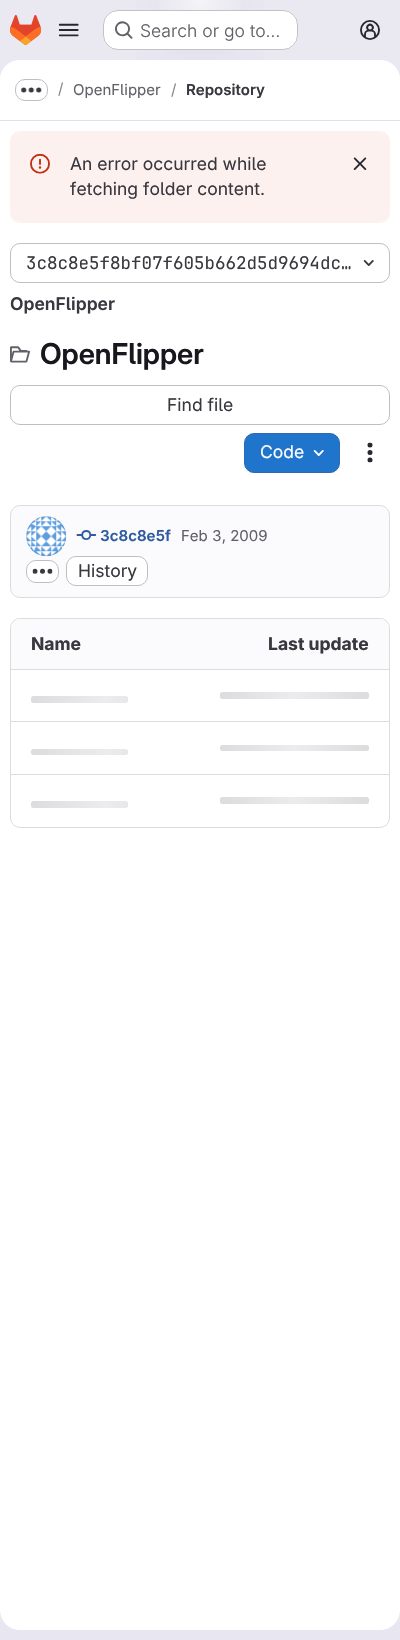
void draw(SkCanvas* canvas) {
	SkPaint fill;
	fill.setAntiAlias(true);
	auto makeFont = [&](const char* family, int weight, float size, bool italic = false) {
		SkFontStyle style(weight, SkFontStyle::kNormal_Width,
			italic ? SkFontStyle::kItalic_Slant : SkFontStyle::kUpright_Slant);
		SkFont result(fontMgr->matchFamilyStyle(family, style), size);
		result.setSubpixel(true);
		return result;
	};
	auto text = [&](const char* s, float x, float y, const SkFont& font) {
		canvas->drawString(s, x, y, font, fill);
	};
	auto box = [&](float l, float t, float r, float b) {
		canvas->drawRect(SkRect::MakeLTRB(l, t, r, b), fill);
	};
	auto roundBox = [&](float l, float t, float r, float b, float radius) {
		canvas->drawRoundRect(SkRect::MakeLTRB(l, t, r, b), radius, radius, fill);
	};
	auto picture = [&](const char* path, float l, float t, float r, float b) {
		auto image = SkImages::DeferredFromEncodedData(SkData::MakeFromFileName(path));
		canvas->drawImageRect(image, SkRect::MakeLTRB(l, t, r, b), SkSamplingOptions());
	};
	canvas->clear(0xFFFFFFFF);
	{
		const SkColor colors[] = {0xFFE8E6F0, 0xFFEAE9F2};
		const float stops[] = {0, 0.7f};
		const SkPoint ends[] = {{346, 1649}, {54, -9}};
		fill.setShader(SkGradientShader::MakeLinear(ends, colors, stops, 2, SkTileMode::kClamp));
		fill.setAlpha(255);
	}
	box(0, 0, 400, 1640);
	{
		const SkColor colors[] = {0xFFE4E2ED, 0x00E4E2ED};
		const float stops[] = {0, 0.44f};
		SkMatrix m = SkMatrix::Translate(200, 0).preScale(200, 1640);
		fill.setShader(SkGradientShader::MakeRadial({0, 0}, 1, colors, stops, 2, SkTileMode::kClamp, 0, &m));
		fill.setAlpha(255);
	}
	box(136, 0, 264, 60);
	{
		const SkColor colors[] = {0xFFE4E2EC, 0x00E4E2EC};
		const float stops[] = {0, 0.31f};
		SkMatrix m = SkMatrix::Translate(200, 0).preScale(200, 1640);
		fill.setShader(SkGradientShader::MakeRadial({0, 0}, 1, colors, stops, 2, SkTileMode::kClamp, 0, &m));
		fill.setAlpha(255);
	}
	box(175, 12, 225, 54);
	{
		const SkColor colors[] = {0x99FFFFFF, 0x00FFFFFF};
		const float stops[] = {0, 0.03f};
		fill.setShader(SkGradientShader::MakeRadial({200, 0}, 1652, colors, stops, 2, SkTileMode::kClamp));
		fill.setAlpha(255);
	}
	box(159, 0, 241, 42);
	picture("image0.png", 10, 15, 41, 45);
	picture("image1.png", 58, 23, 79, 37);
	fill.setShader(nullptr);
	fill.setColor(0xFFFFFFFF);
	roundBox(103, 10, 298, 50, 15);
	fill.setStyle(SkPaint::kStroke_Style);
	fill.setStrokeWidth(1);
	fill.setColor(0x3D050506);
	canvas->drawRoundRect(SkRect::MakeLTRB(103.5f, 10.5f, 297.5f, 49.5f), 14.5f, 14.5f, fill);
	picture("image2.png", 115, 21, 133, 39);
	picture("image3.png", 360, 20, 380, 40);
	fill.setStyle(SkPaint::kFill_Style);
	fill.setColor(0xFFFFFFFF);
	roundBox(0, 60, 400, 1630, 20);
	canvas->drawPath(SkPathBuilder().moveTo(20, 60).lineTo(380, 60).cubicTo(391, 60, 400, 69, 400, 80).lineTo(400, 121).lineTo(0, 121).lineTo(0, 80).cubicTo(0, 69, 9, 60, 20, 60).close().detach(), fill);
	fill.setColor(0xFFE1DFEC);
	box(0, 120, 400, 121);
	fill.setStyle(SkPaint::kStroke_Style);
	fill.setColor(0xFFBFBFC3);
	canvas->drawRoundRect(SkRect::MakeLTRB(15.5f, 79.5f, 47.5f, 100.5f), 9.5f, 9.5f, fill);
	picture("image4.png", 21, 87, 42, 93);
	fill.setStyle(SkPaint::kFill_Style);
	fill.setColor(0xFFFCF1EF);
	roundBox(10, 131, 390, 223, 10);
	picture("image5.png", 30, 153, 50, 174);
	picture("image6.png", 353, 157, 367, 170);
	fill.setStyle(SkPaint::kStroke_Style);
	fill.setColor(0xFFBFBFC3);
	canvas->drawRoundRect(SkRect::MakeLTRB(10.5f, 243.5f, 389.5f, 282.5f), 9.5f, 9.5f, fill);
	picture("image7.png", 363, 260, 374, 266);
	picture("image8.png", 10, 346, 30, 363);
	canvas->drawRoundRect(SkRect::MakeLTRB(10.5f, 385.5f, 389.5f, 424.5f), 9.5f, 9.5f, fill);
	fill.setStyle(SkPaint::kFill_Style);
	fill.setColor(0xFF1F75CB);
	canvas->drawRoundRect(SkRect::MakeLTRB(244.5f, 433.5f, 339.5f, 472.5f), 9.5f, 9.5f, fill);
	fill.setStyle(SkPaint::kStroke_Style);
	fill.setColor(0xFF2F68B4);
	canvas->drawRoundRect(SkRect::MakeLTRB(244.5f, 433.5f, 339.5f, 472.5f), 9.5f, 9.5f, fill);
	picture("image9.png", 313, 450, 324, 456);
	picture("image10.png", 367, 442, 373, 463);
	fill.setStyle(SkPaint::kFill_Style);
	fill.setColor(0xFFFBFAFD);
	canvas->drawRoundRect(SkRect::MakeLTRB(10.5f, 505.5f, 389.5f, 597.5f), 9.5f, 9.5f, fill);
	fill.setStyle(SkPaint::kStroke_Style);
	fill.setColor(0xFFDCDCDE);
	canvas->drawRoundRect(SkRect::MakeLTRB(10.5f, 505.5f, 389.5f, 597.5f), 9.5f, 9.5f, fill);
	picture("image11.png", 26, 516, 67, 557);
	fill.setColor(0x14050506);
	canvas->drawCircle(46, 536, 19.5f, fill);
	picture("image12.png", 76, 530, 97, 540);
	fill.setStyle(SkPaint::kFill_Style);
	fill.setColor(0xFFFFFFFF);
	canvas->drawRoundRect(SkRect::MakeLTRB(26.5f, 560.5f, 58.5f, 582.5f), 9.5f, 9.5f, fill);
	fill.setStyle(SkPaint::kStroke_Style);
	fill.setColor(0xFFBFBFC3);
	canvas->drawRoundRect(SkRect::MakeLTRB(26.5f, 560.5f, 58.5f, 582.5f), 9.5f, 9.5f, fill);
	picture("image13.png", 32, 568, 53, 574);
	fill.setStyle(SkPaint::kFill_Style);
	fill.setColor(0xFFFFFFFF);
	canvas->drawRoundRect(SkRect::MakeLTRB(66.5f, 556.5f, 147.5f, 585.5f), 9.5f, 9.5f, fill);
	fill.setStyle(SkPaint::kStroke_Style);
	fill.setColor(0xFFBFBFC3);
	canvas->drawRoundRect(SkRect::MakeLTRB(66.5f, 556.5f, 147.5f, 585.5f), 9.5f, 9.5f, fill);
	fill.setColor(0xFFDCDCDE);
	canvas->drawRoundRect(SkRect::MakeLTRB(10.5f, 618.5f, 389.5f, 827.5f), 9.5f, 9.5f, fill);
	fill.setStyle(SkPaint::kFill_Style);
	fill.setColor(0xFFFBFAFD);
	canvas->drawPath(SkPathBuilder().moveTo(20, 619).lineTo(200, 619).lineTo(200, 669).lineTo(11, 669).lineTo(11, 628).cubicTo(11, 623, 15, 619, 20, 619).close().detach(), fill);
	canvas->drawPath(SkPathBuilder().moveTo(200, 619).lineTo(380, 619).cubicTo(385, 619, 389, 623, 389, 628).lineTo(389, 669).lineTo(200, 669).close().detach(), fill);
	fill.setColor(0xFFDCDCDE);
	box(11, 669, 389, 670);
	{
		const SkColor colors[] = {0xFFDCDCDE, 0xFFECECEF, 0xFFDCDCDE};
		const float stops[] = {0, 0.5f, 1};
		const SkPoint ends[] = {{220, 692}, {369, 692}};
		fill.setShader(SkGradientShader::MakeLinear(ends, colors, stops, 3, SkTileMode::kClamp));
		fill.setAlpha(255);
	}
	roundBox(220, 692, 369, 699, 2.5f);
	{
		const SkColor colors[] = {0xFFDCDCDE, 0xFFECECEF, 0xFFDCDCDE};
		const float stops[] = {0, 0.5f, 1};
		const SkPoint ends[] = {{31, 696}, {180, 696}};
		fill.setShader(SkGradientShader::MakeLinear(ends, colors, stops, 3, SkTileMode::kClamp));
		fill.setAlpha(255);
	}
	roundBox(31, 696, 128, 703, 2.5f);
	fill.setShader(nullptr);
	fill.setColor(0xFFDCDCDE);
	box(11, 721, 389, 722);
	{
		const SkColor colors[] = {0xFFDCDCDE, 0xFFECECEF, 0xFFDCDCDE};
		const float stops[] = {0, 0.5f, 1};
		const SkPoint ends[] = {{220, 745}, {369, 745}};
		fill.setShader(SkGradientShader::MakeLinear(ends, colors, stops, 3, SkTileMode::kClamp));
		fill.setAlpha(255);
	}
	roundBox(220, 745, 369, 751, 2.5f);
	{
		const SkColor colors[] = {0xFFDCDCDE, 0xFFECECEF, 0xFFDCDCDE};
		const float stops[] = {0, 0.5f, 1};
		const SkPoint ends[] = {{31, 749}, {180, 749}};
		fill.setShader(SkGradientShader::MakeLinear(ends, colors, stops, 3, SkTileMode::kClamp));
		fill.setAlpha(255);
	}
	roundBox(31, 749, 128, 755, 2.5f);
	fill.setShader(nullptr);
	fill.setColor(0xFFDCDCDE);
	box(11, 774, 389, 775);
	{
		const SkColor colors[] = {0xFFDCDCDE, 0xFFECECEF, 0xFFDCDCDE};
		const float stops[] = {0, 0.5f, 1};
		const SkPoint ends[] = {{220, 797}, {369, 797}};
		fill.setShader(SkGradientShader::MakeLinear(ends, colors, stops, 3, SkTileMode::kClamp));
		fill.setAlpha(255);
	}
	roundBox(220, 797, 369, 804, 2.5f);
	{
		const SkColor colors[] = {0xFFDCDCDE, 0xFFECECEF, 0xFFDCDCDE};
		const float stops[] = {0, 0.5f, 1};
		const SkPoint ends[] = {{31, 801}, {180, 801}};
		fill.setShader(SkGradientShader::MakeLinear(ends, colors, stops, 3, SkTileMode::kClamp));
		fill.setAlpha(255);
	}
	roundBox(31, 801, 128, 808, 2.5f);
	auto font1 = makeFont("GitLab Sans", 300, 17.5f);
	fill.setShader(nullptr);
	fill.setColor(0xFF626168);
	text("Search or go to…", 140, 37, font1);
	auto font2 = makeFont("GitLab Sans", 400, 15);
	fill.setColor(0xFF89888D);
	text("/", 58, 94, font2);
	fill.setColor(0xFF626168);
	text("OpenFlipper", 73, 95, font2);
	fill.setColor(0xFF89888D);
	text("/", 171, 95, font2);
	auto font3 = makeFont("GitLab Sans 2", 600, 15);
	fill.setColor(0xFF3A383F);
	text("Repository", 186, 95, font3);
	auto font4 = makeFont("GitLab Sans", 400, 17.5f);
	text("An error occurred while", 70, 170, font4);
	text("fetching folder content.", 70, 195, font4);
	auto font5 = makeFont("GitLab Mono", 400, 17.5f);
	text("3c8c8e5f8bf07f605b662d5d9694dc…", 26, 269, font5);
	auto font6 = makeFont("GitLab Sans 2", 600, 17.5f);
	text("OpenFlipper", 10, 310, font6);
	auto font7 = makeFont("GitLab Sans", 600, 28.75f);
	fill.setColor(0xFF18171D);
	text("OpenFlipper", 40, 364, font7);
	fill.setColor(0xFF3A383F);
	text("Find file", 167, 411, font4);
	fill.setColor(0xFFFFFFFF);
	text("Code", 260, 458, font4);
	fill.setColor(0xFF2F5CA0);
	text("3c8c8e5f", 100, 541, font3);
	fill.setColor(0xFF626168);
	text("Feb 3, 2009", 181, 541, font2);
	fill.setColor(0xFF3A383F);
	text("History", 78, 577, font4);
	auto font8 = makeFont("GitLab Sans", 700, 17.5f);
	text("Name", 31, 650, font8);
	text("Last update", 268, 650, font8);
}
